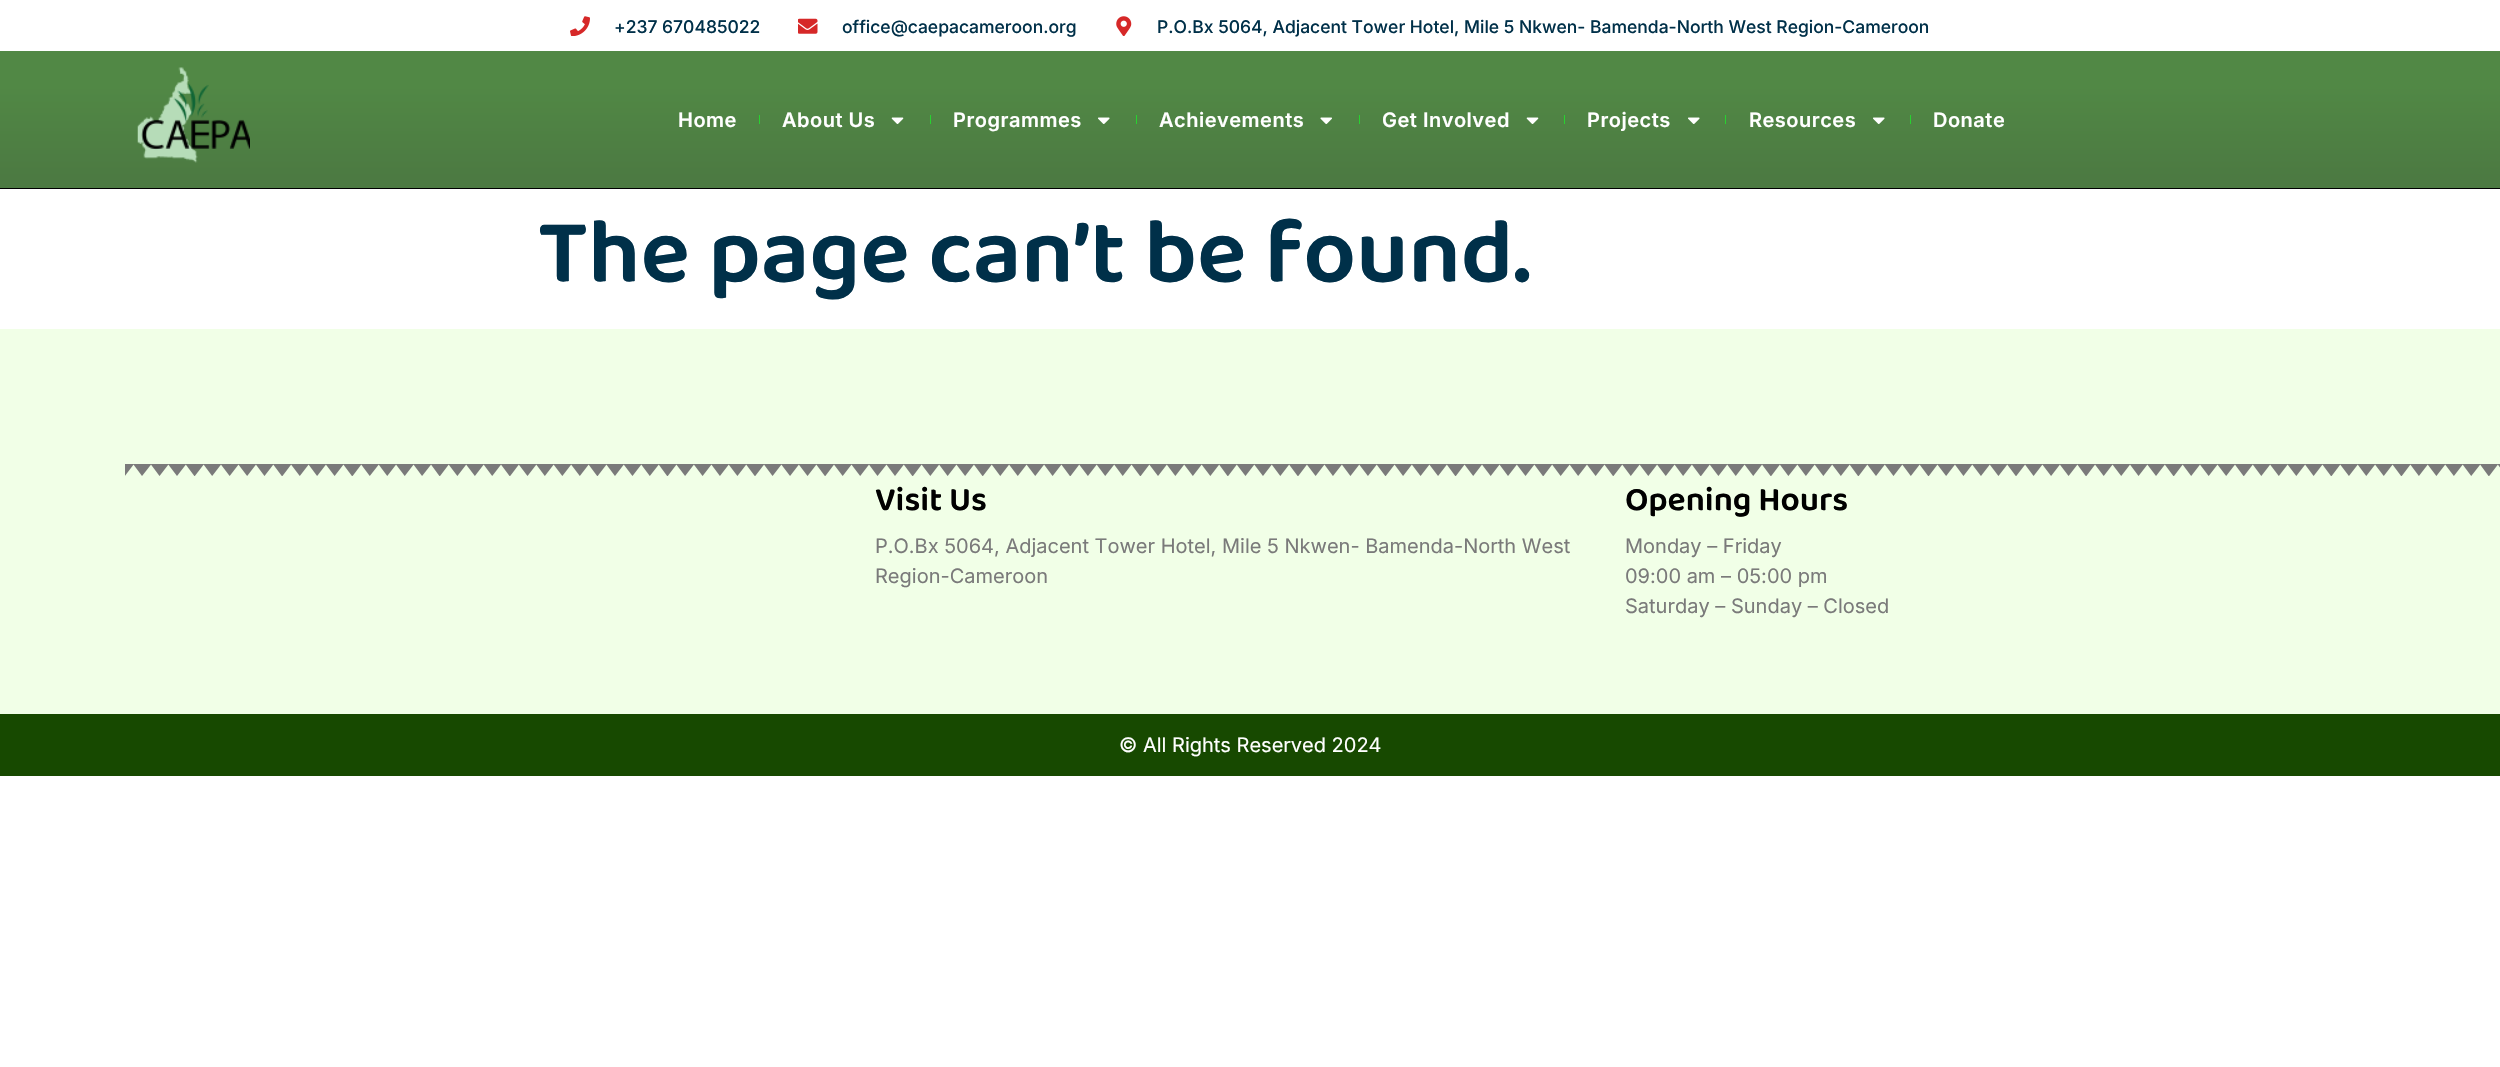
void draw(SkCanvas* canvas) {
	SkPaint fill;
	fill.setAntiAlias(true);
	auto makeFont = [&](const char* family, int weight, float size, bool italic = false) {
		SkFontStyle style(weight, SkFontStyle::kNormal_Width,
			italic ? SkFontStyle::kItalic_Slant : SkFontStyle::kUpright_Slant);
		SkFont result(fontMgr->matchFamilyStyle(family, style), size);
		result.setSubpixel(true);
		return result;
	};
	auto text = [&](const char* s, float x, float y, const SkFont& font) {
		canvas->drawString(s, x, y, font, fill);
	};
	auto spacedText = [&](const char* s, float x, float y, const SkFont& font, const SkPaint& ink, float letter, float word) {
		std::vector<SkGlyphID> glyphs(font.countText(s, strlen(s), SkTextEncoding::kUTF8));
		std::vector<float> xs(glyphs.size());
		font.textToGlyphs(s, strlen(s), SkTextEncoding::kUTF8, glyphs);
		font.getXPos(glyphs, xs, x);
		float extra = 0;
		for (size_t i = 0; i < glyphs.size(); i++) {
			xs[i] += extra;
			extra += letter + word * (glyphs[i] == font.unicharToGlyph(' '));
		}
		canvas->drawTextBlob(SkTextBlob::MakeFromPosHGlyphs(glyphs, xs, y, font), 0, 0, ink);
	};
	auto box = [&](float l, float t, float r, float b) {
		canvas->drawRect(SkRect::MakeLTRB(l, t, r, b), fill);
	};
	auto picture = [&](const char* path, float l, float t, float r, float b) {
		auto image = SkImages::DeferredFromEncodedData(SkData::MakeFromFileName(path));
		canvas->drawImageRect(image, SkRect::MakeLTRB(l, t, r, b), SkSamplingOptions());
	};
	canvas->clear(0xFFFFFFFF);
	picture("image0.png", 570, 16, 590, 36);
	picture("image1.png", 798, 18, 818, 34);
	picture("image2.png", 1116, 16, 1132, 36);
	{
		const SkColor colors[] = {0xFF518845, 0xFF4C7A42};
		const float stops[] = {0.25f, 0.92f};
		const SkPoint ends[] = {{1250, 51}, {1250, 188}};
		fill.setShader(SkGradientShader::MakeLinear(ends, colors, stops, 2, SkTileMode::kClamp));
		fill.setAlpha(255);
	}
	box(0, 51, 2500, 188);
	fill.setShader(nullptr);
	fill.setColor(0xFF000000);
	box(0, 188, 2500, 189);
	picture("image3.png", 137, 67, 250, 163);
	fill.setColor(0xFF28D230);
	box(759, 115, 760, 124);
	picture("image4.png", 891, 117, 904, 124);
	box(930, 115, 931, 124);
	picture("image5.png", 1098, 117, 1110, 124);
	box(1136, 115, 1137, 124);
	picture("image6.png", 1320, 117, 1332, 124);
	box(1359, 115, 1360, 124);
	picture("image4.png", 1526, 117, 1539, 124);
	box(1564, 115, 1565, 124);
	picture("image5.png", 1688, 117, 1700, 124);
	box(1725, 115, 1726, 124);
	picture("image5.png", 1873, 117, 1885, 124);
	box(1910, 115, 1911, 124);
	fill.setColor(0xFFF1FFE7);
	box(0, 329, 2500, 714);
	picture("image7.png", 125, 464, 2500, 476);
	fill.setColor(0xFF174900);
	box(0, 714, 2500, 776);
	auto font1 = makeFont("Inter", 500, 17.5f);
	fill.setColor(0xFF003049);
	text("+237 670485022", 614, 33, font1);
	text("office@caepacameroon.org", 842, 33, font1);
	text("P.O.Bx 5064, Adjacent Tower Hotel, Mile 5 Nkwen- Bamenda-North West Region-Cameroon", 1157, 33, font1);
	auto font2 = makeFont("Inter", 600, 20);
	fill.setColor(0xFFFFFFFF);
	spacedText("Home", 678, 127, font2, fill, 0.5f, 0);
	spacedText("About Us", 782, 127, font2, fill, 0.5f, 0);
	spacedText("Programmes", 953, 127, font2, fill, 0.5f, 0);
	spacedText("Achievements", 1159, 127, font2, fill, 0.5f, 0);
	spacedText("Get Involved", 1382, 127, font2, fill, 0.5f, 0);
	spacedText("Projects", 1587, 127, font2, fill, 0.5f, 0);
	spacedText("Resources", 1749, 127, font2, fill, 0.5f, 0);
	spacedText("Donate", 1933, 127, font2, fill, 0.5f, 0);
	auto font3 = makeFont("Baloo Thambi 2", 600, 92.5f);
	fill.setColor(0xFF003049);
	text("The page can’t be found.", 538, 281, font3);
	auto font4 = makeFont("Baloo Thambi 2", 600, 33.75f);
	fill.setColor(0xFF000000);
	text("Visit Us", 875, 510, font4);
	auto font5 = makeFont("Inter", 400, 20);
	fill.setColor(0xFF7A7A7A);
	text("P.O.Bx 5064, Adjacent Tower Hotel, Mile 5 Nkwen- Bamenda-North West", 875, 553, font5);
	text("Region-Cameroon", 875, 583, font5);
	fill.setColor(0xFF000000);
	text("Opening Hours", 1625, 510, font4);
	fill.setColor(0xFF7A7A7A);
	text("Monday – Friday", 1625, 553, font5);
	text("09:00 am – 05:00 pm", 1625, 583, font5);
	text("Saturday – Sunday – Closed", 1625, 613, font5);
	fill.setColor(0xFFFFFFFF);
	text("© All Rights Reserved 2024", 1119, 752, font5);
}
